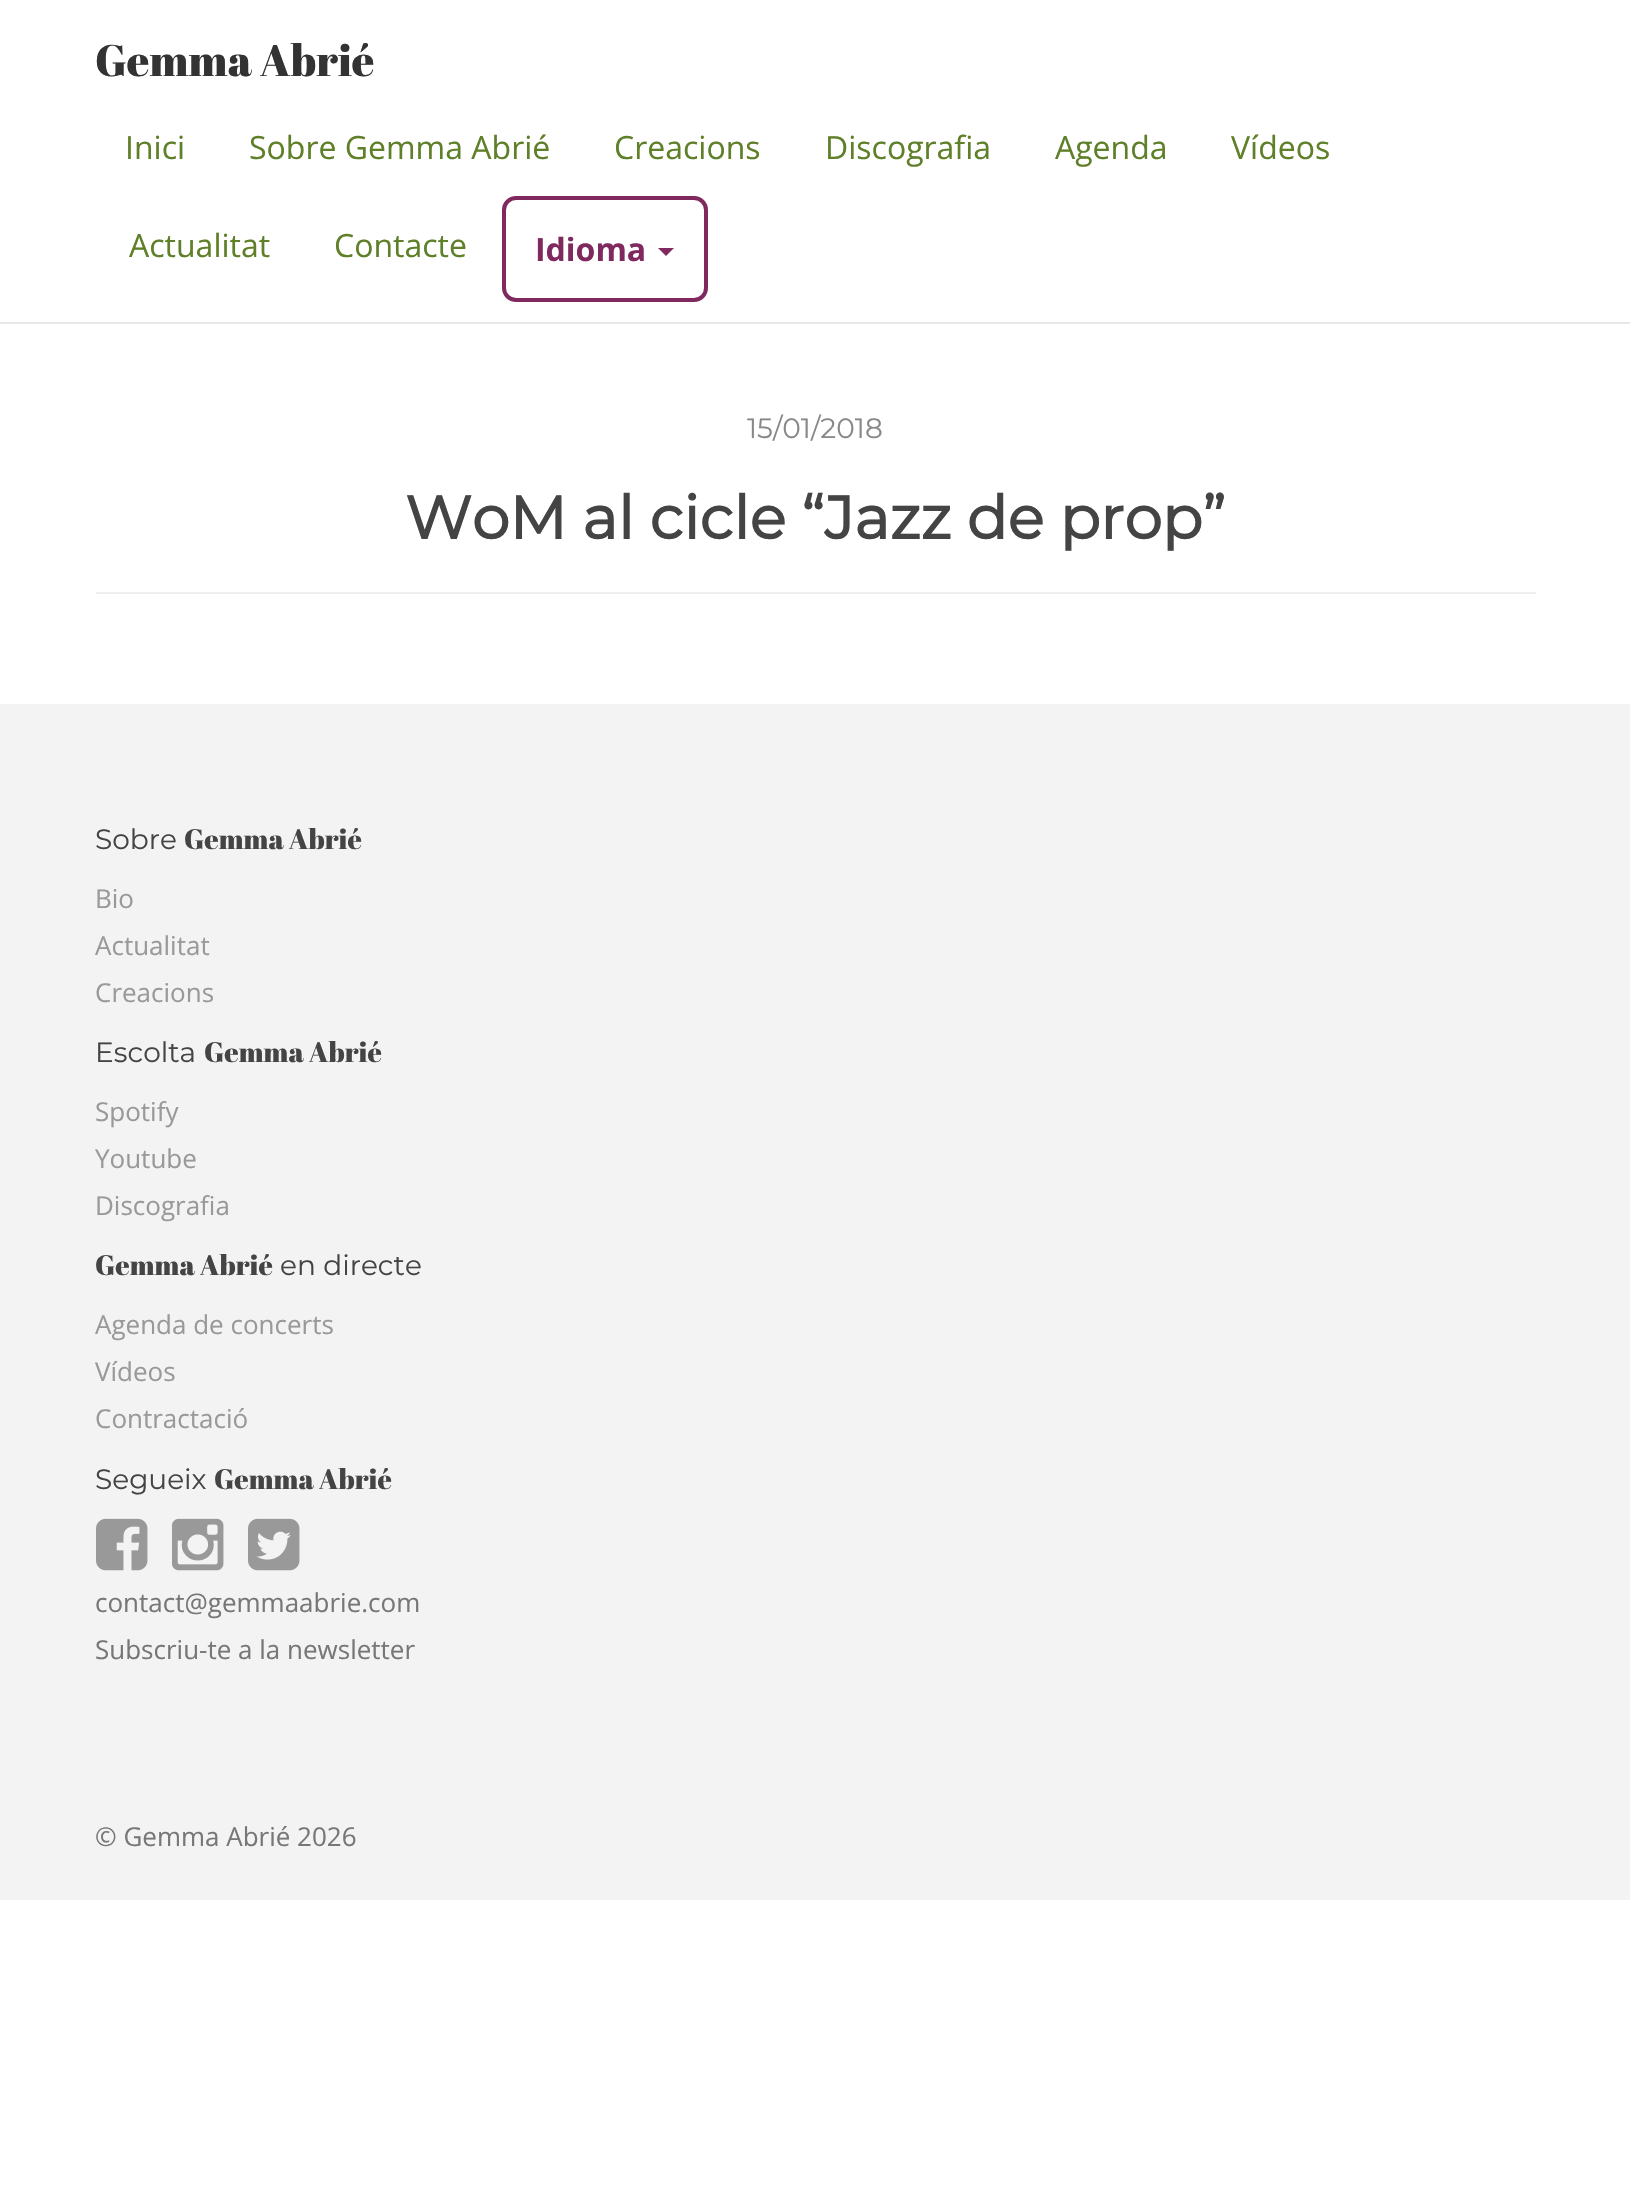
void draw(SkCanvas* canvas) {
	SkPaint fill;
	fill.setAntiAlias(true);
	auto makeFont = [&](const char* family, int weight, float size, bool italic = false) {
		SkFontStyle style(weight, SkFontStyle::kNormal_Width,
			italic ? SkFontStyle::kItalic_Slant : SkFontStyle::kUpright_Slant);
		SkFont result(fontMgr->matchFamilyStyle(family, style), size);
		result.setSubpixel(true);
		return result;
	};
	auto text = [&](const char* s, float x, float y, const SkFont& font) {
		canvas->drawString(s, x, y, font, fill);
	};
	auto box = [&](float l, float t, float r, float b) {
		canvas->drawRect(SkRect::MakeLTRB(l, t, r, b), fill);
	};
	auto picture = [&](const char* path, float l, float t, float r, float b) {
		auto image = SkImages::DeferredFromEncodedData(SkData::MakeFromFileName(path));
		canvas->drawImageRect(image, SkRect::MakeLTRB(l, t, r, b), SkSamplingOptions());
	};
	canvas->clear(0xFFFFFFFF);
	fill.setColor(0xFFE7E7E7);
	box(0, 322, 1630, 324);
	fill.setStyle(SkPaint::kStroke_Style);
	fill.setStrokeWidth(4);
	fill.setColor(0xFF7F295F);
	canvas->drawRoundRect(SkRect::MakeLTRB(504, 198, 706, 300), 12, 12, fill);
	fill.setStyle(SkPaint::kFill_Style);
	canvas->drawPath(SkPathBuilder().moveTo(658, 248).lineTo(674, 248).lineTo(666, 256).close().detach(), fill);
	fill.setColor(0xFFEEEEEE);
	box(96, 592, 1536, 594);
	fill.setColor(0xFFF3F3F3);
	box(0, 704, 1630, 1900);
	picture("image0.png", 96, 1518, 148, 1571);
	picture("image1.png", 172, 1518, 224, 1571);
	picture("image2.png", 248, 1518, 300, 1571);
	auto font1 = makeFont("Abril Fatface", 400, 44);
	fill.setColor(0xFF333333);
	text("Gemma Abrié", 95, 76, font1);
	auto font2 = makeFont("Open Sans", 400, 32);
	fill.setColor(0xFF5F7F29);
	text("Inici", 125, 159, font2);
	text("Sobre Gemma Abrié", 249, 159, font2);
	text("Creacions", 614, 159, font2);
	text("Discografia", 825, 159, font2);
	text("Agenda", 1055, 159, font2);
	text("Vídeos", 1231, 159, font2);
	text("Actualitat", 129, 257, font2);
	text("Contacte", 334, 257, font2);
	auto font3 = makeFont("Open Sans", 700, 32);
	fill.setColor(0xFF7F295F);
	text("Idioma", 535, 261, font3);
	auto font4 = makeFont("Montserrat", 100, 28);
	fill.setColor(0xFF888888);
	text("15/01/2018", 747, 438, font4);
	auto font5 = makeFont("Montserrat", 700, 60);
	fill.setColor(0xFF444444);
	text("WoM al cicle “Jazz de prop”", 405, 539, font5);
	text("Sobre", 95, 849, font4);
	auto font6 = makeFont("Abril Fatface", 400, 28);
	text("Gemma Abrié", 184, 849, font6);
	auto font7 = makeFont("Open Sans", 400, 26);
	fill.setColor(0xFF999999);
	text("Bio", 95, 908, font7);
	text("Actualitat", 95, 955, font7);
	text("Creacions", 95, 1002, font7);
	fill.setColor(0xFF444444);
	text("Escolta", 95, 1062, font4);
	text("Gemma Abrié", 204, 1062, font6);
	fill.setColor(0xFF999999);
	text("Spotify", 95, 1121, font7);
	text("Youtube", 95, 1168, font7);
	text("Discografia", 95, 1215, font7);
	fill.setColor(0xFF444444);
	text("Gemma Abrié", 95, 1275, font6);
	text("en directe", 280, 1275, font4);
	fill.setColor(0xFF999999);
	text("Agenda de concerts", 95, 1334, font7);
	text("Vídeos", 95, 1381, font7);
	text("Contractació", 95, 1428, font7);
	fill.setColor(0xFF444444);
	text("Segueix", 95, 1489, font4);
	text("Gemma Abrié", 214, 1489, font6);
	fill.setColor(0xFF777777);
	text("contact@gemmaabrie.com", 95, 1612, font7);
	text("Subscriu-te a la newsletter", 95, 1659, font7);
	text("© Gemma Abrié 2026", 95, 1846, font7);
}
